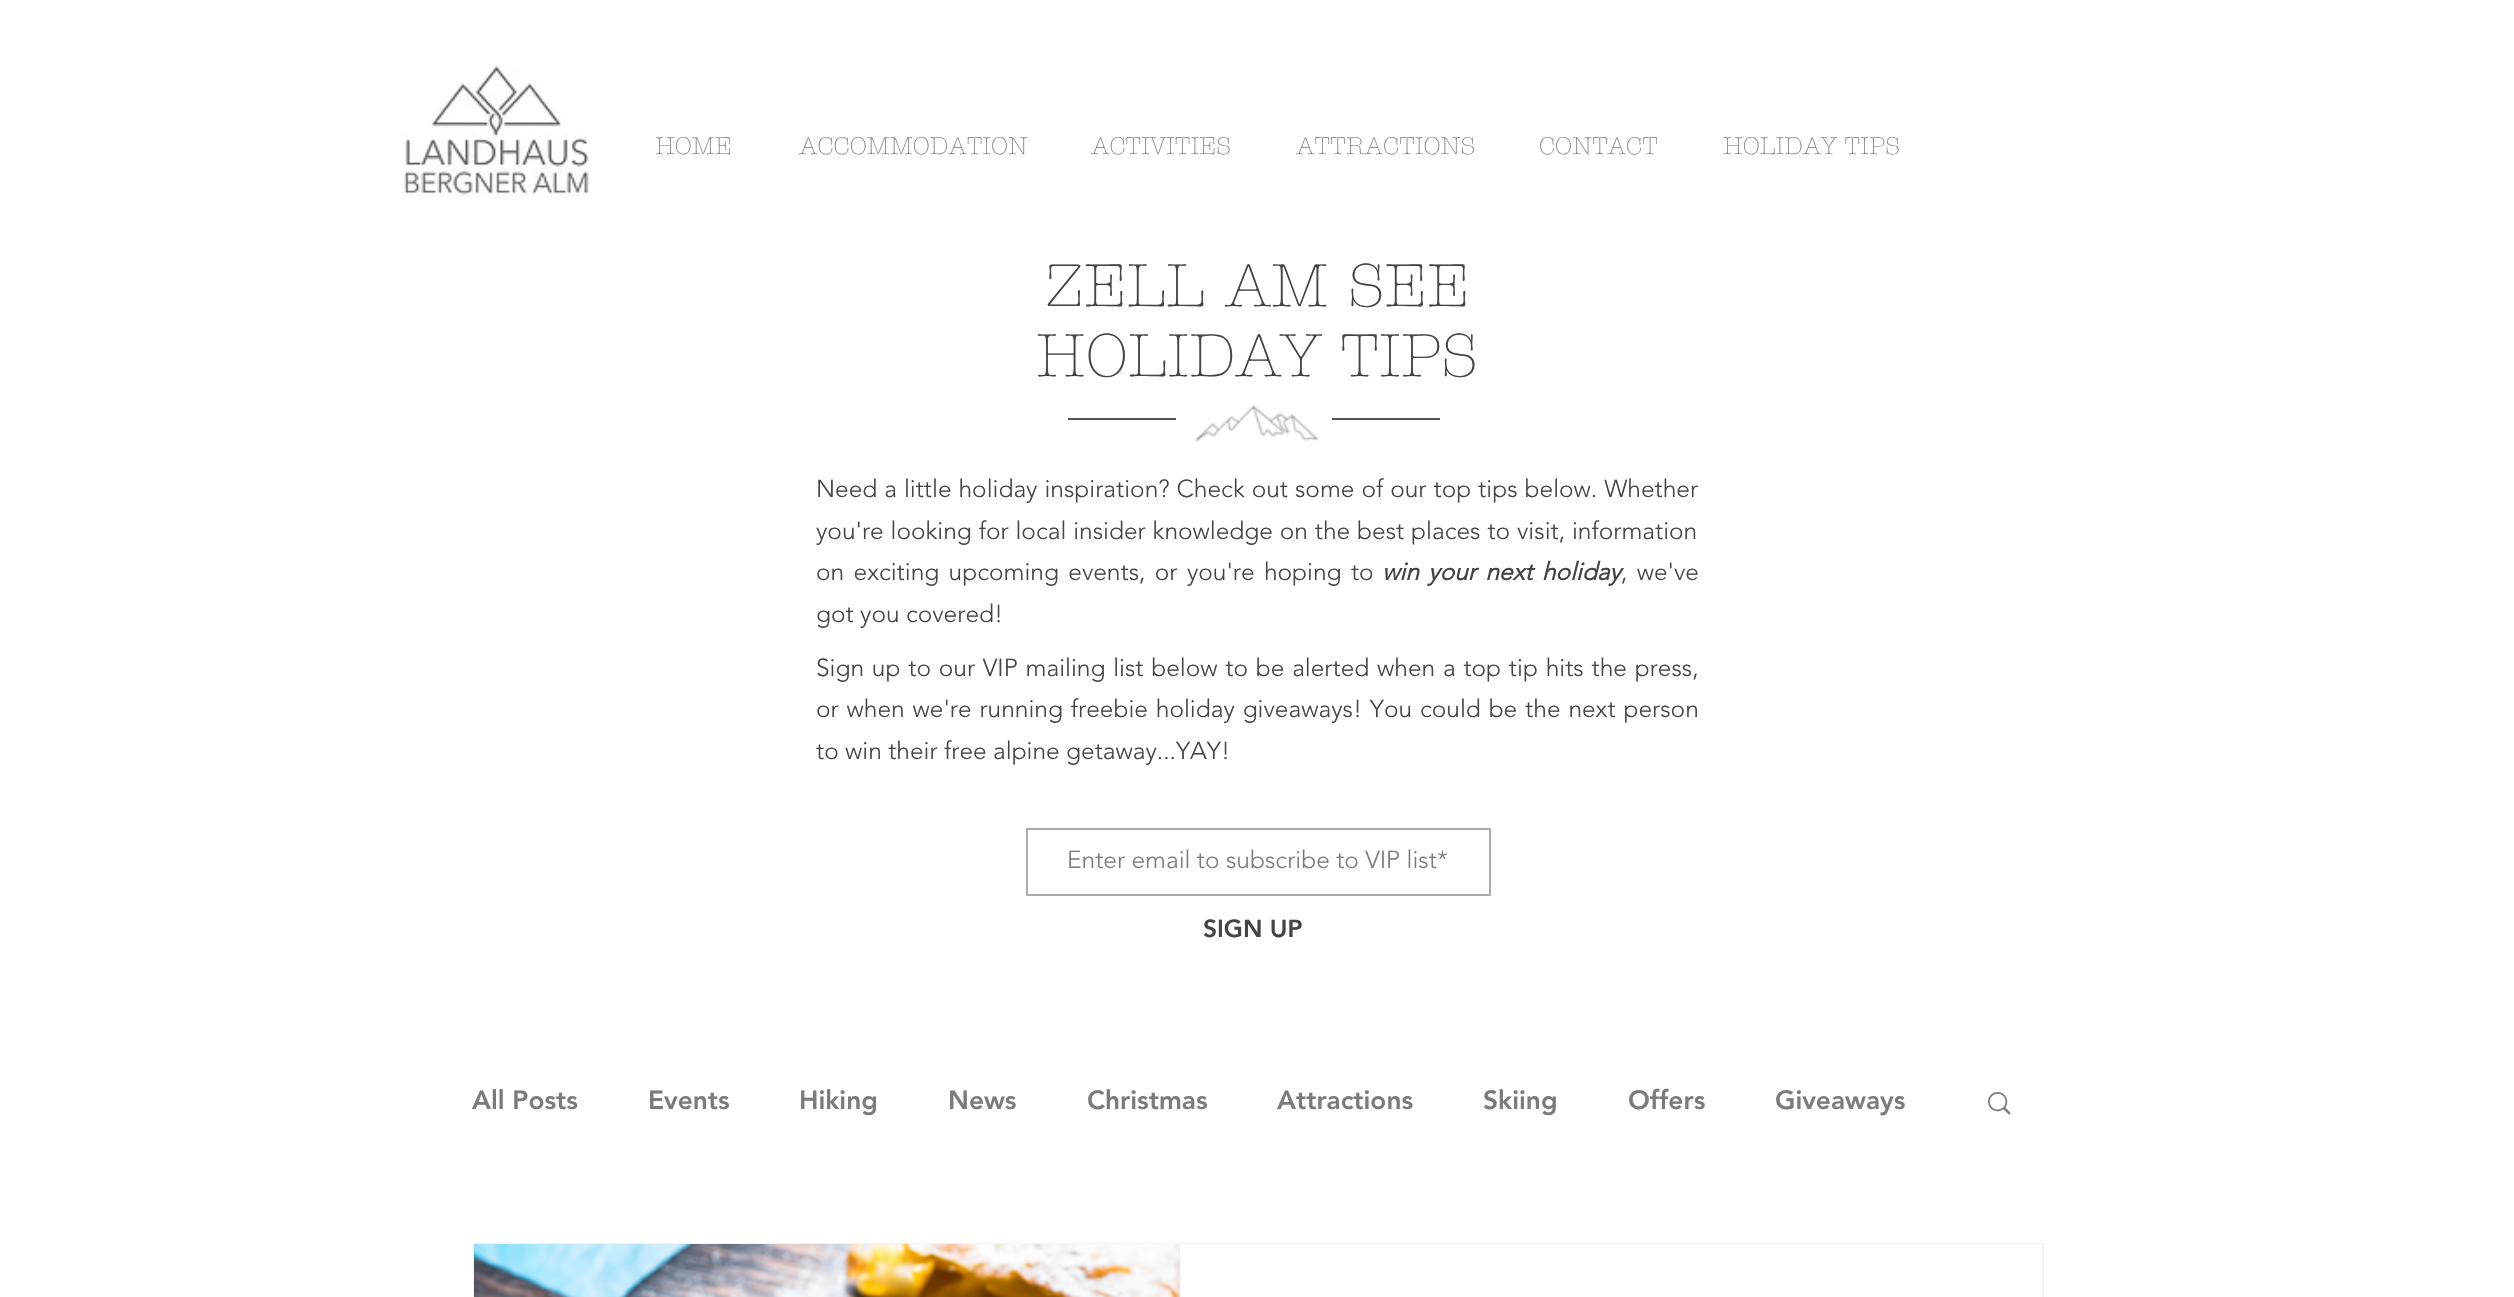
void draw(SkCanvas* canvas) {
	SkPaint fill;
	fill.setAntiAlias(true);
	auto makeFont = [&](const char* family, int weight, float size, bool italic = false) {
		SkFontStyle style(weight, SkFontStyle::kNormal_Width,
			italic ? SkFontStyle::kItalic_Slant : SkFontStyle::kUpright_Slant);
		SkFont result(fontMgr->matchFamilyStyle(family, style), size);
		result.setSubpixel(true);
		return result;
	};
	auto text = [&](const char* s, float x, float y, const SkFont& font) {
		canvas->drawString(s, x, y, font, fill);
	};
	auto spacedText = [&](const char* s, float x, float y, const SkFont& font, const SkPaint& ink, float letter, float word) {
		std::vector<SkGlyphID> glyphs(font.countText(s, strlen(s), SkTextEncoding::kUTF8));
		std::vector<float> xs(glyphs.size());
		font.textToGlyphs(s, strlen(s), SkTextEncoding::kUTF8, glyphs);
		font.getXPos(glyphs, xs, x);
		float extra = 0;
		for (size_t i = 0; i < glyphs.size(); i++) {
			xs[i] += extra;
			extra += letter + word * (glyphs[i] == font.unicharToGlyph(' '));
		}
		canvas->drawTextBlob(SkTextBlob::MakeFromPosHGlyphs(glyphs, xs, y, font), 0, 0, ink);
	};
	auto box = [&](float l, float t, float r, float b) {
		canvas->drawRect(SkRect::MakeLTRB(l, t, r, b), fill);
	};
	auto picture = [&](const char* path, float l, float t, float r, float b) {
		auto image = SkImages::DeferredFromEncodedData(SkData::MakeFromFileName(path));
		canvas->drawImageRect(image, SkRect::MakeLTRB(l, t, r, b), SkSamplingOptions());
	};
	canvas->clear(0xFFFFFFFF);
	picture("image0.png", 401, 65, 591, 198);
	fill.setColor(0xFF545454);
	box(1068, 418, 1176, 420);
	picture("image1.png", 1195, 405, 1319, 442);
	box(1332, 418, 1440, 420);
	fill.setStyle(SkPaint::kStroke_Style);
	fill.setStrokeWidth(2);
	fill.setColor(0xFFACABAB);
	canvas->drawRect(SkRect::MakeLTRB(1027, 829, 1490, 895), fill);
	picture("image2.png", 1988, 1092, 2011, 1115);
	fill.setColor(0xFFF2F2F2);
	canvas->drawRect(SkRect::MakeLTRB(474, 1244, 2043, 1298), fill);
	picture("image3.png", 474, 1244, 1180, 1297);
	fill.setStyle(SkPaint::kFill_Style);
	fill.setColor(0xFFFFFFFF);
	box(1180, 1244, 2042, 1245);
	auto font1 = makeFont("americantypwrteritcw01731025", 300, 24.5f);
	fill.setColor(0xFF7D7A7A);
	text("HOME", 655, 154, font1);
	text("ACCOMMODATION", 799, 154, font1);
	text("ACTIVITIES", 1091, 154, font1);
	text("ATTRACTIONS", 1296, 154, font1);
	text("CONTACT", 1539, 154, font1);
	text("HOLIDAY TIPS", 1723, 154, font1);
	auto font2 = makeFont("americantypwrteritcw01731025", 300, 61.25f);
	fill.setColor(0xFF444444);
	text("ZELL AM SEE", 1045, 306, font2);
	text("HOLIDAY TIPS", 1036, 376, font2);
	auto font3 = makeFont("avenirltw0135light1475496", 300, 24.5f);
	spacedText("Need a little holiday inspiration? Check out some of our top tips below. Whether", 816, 497, font3, fill, 0, 0.6f);
	spacedText("you're looking for local insider knowledge on the best places to visit, information", 816, 539, font3, fill, 0, 0.5f);
	spacedText("on exciting upcoming events, or you're hoping to", 816, 580, font3, fill, 0, 3);
	auto font4 = makeFont("avenirltw0135light1475496", 700, 24.5f, true);
	spacedText("win your next holiday", 1382, 580, font4, fill, 0, 3);
	spacedText(", we've", 1621, 580, font3, fill, 0, 3);
	text("got you covered!", 816, 622, font3);
	spacedText("Sign up to our VIP mailing list below to be alerted when a top tip hits the press,", 816, 676, font3, fill, 0, 1.4f);
	spacedText("or when we're running freebie holiday giveaways! You could be the next person", 816, 717, font3, fill, 0, 1.5f);
	text("to win their free alpine getaway...YAY!", 816, 759, font3);
	fill.setColor(0xFF7D7A7A);
	text("Enter email to subscribe to VIP list*", 1067, 868, font3);
	auto font5 = makeFont("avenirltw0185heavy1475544", 900, 24.5f);
	fill.setColor(0xFF444444);
	text("SIGN UP", 1203, 937, font5);
	auto font6 = makeFont("avenirltw0185heavy1475544", 900, 26.25f);
	fill.setColor(0xFF7D7A7A);
	text("All Posts", 472, 1109, font6);
	text("Events", 648, 1109, font6);
	text("Hiking", 799, 1109, font6);
	text("News", 948, 1109, font6);
	text("Christmas", 1087, 1109, font6);
	text("Attractions", 1277, 1109, font6);
	text("Skiing", 1483, 1109, font6);
	text("Offers", 1628, 1109, font6);
	text("Giveaways", 1775, 1109, font6);
}
